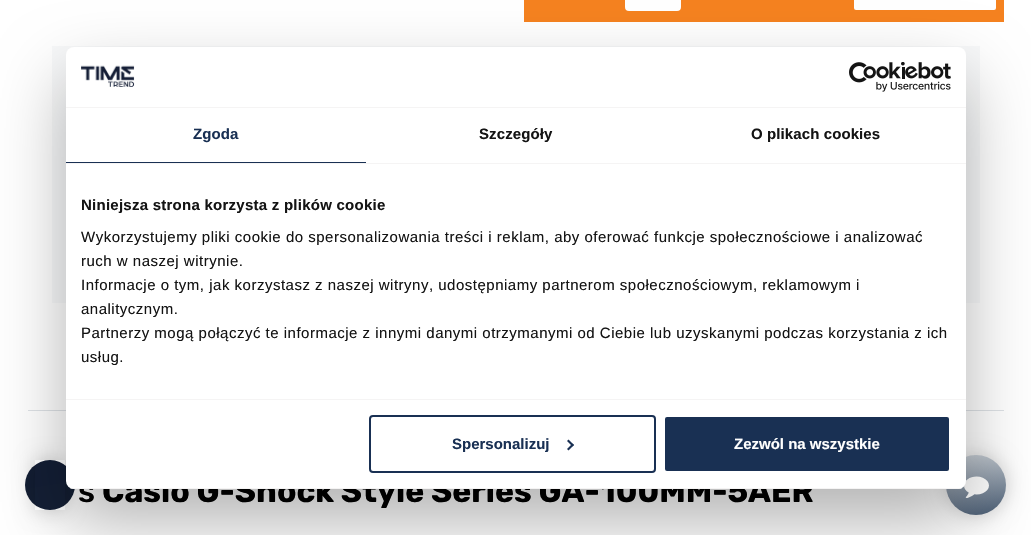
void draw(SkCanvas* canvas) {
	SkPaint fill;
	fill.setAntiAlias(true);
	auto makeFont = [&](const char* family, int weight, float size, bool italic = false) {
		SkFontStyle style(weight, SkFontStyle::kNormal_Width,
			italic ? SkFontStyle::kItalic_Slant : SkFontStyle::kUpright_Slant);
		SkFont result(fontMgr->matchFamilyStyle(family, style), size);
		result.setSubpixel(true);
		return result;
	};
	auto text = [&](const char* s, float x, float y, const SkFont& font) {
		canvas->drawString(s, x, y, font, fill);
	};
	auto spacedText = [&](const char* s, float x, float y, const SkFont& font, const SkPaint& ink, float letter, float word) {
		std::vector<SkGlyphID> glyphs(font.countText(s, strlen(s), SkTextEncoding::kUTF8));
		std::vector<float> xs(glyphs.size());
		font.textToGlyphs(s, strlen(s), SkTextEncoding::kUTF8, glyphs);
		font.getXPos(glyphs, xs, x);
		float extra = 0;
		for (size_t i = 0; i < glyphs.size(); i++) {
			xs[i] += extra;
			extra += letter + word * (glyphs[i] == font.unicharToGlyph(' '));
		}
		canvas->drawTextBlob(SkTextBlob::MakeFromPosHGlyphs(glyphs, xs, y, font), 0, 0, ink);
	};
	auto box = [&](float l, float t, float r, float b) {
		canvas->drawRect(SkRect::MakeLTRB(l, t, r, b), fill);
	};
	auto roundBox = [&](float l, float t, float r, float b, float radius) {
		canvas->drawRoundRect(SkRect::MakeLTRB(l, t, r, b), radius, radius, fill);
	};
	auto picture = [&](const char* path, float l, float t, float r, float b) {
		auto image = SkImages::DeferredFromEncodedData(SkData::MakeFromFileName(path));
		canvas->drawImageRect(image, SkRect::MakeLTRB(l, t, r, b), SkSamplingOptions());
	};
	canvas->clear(0xFFFFFFFF);
	{
		const SkColor colors[] = {0xFF141F35, 0xFF131E35};
		const float stops[] = {0, 1};
		const SkPoint ends[] = {{55, 514}, {45, 456}};
		fill.setShader(SkGradientShader::MakeLinear(ends, colors, stops, 2, SkTileMode::kClamp));
		fill.setAlpha(255);
	}
	canvas->drawCircle(50, 485, 25, fill);
	fill.setShader(nullptr);
	fill.setColor(0xFFF5821F);
	box(524, 0, 1004, 22);
	fill.setColor(0xFFFFFFFF);
	roundBox(625, -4, 681, 11, 4);
	roundBox(854, -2, 996, 10, 2);
	fill.setColor(0xFFF8F9FA);
	box(52, 46, 980, 303);
	fill.setColor(0xFFDEE2E6);
	box(28, 410, 1004, 411);
	fill.setColor(0x33000000);
	fill.setMaskFilter(SkMaskFilter::MakeBlur(kNormal_SkBlurStyle, 10));
	canvas->drawRoundRect(SkRect::MakeLTRB(946, 455, 1006, 515), 30, 30, fill);
	fill.setMaskFilter(nullptr);
	picture("image2.png", 946, 455, 1006, 515);
	fill.setColor(0x4D000000);
	fill.setMaskFilter(SkMaskFilter::MakeBlur(kNormal_SkBlurStyle, 34));
	canvas->drawRoundRect(SkRect::MakeLTRB(66, 79, 966, 521), 8, 8, fill);
	fill.setMaskFilter(nullptr);
	canvas->save();
	canvas->clipPath(SkPathBuilder(SkPathFillType::kEvenOdd).moveTo(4, 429).lineTo(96, 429).lineTo(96, 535).lineTo(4, 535).close().moveTo(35, 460).lineTo(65, 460).lineTo(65, 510).lineTo(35, 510).close().detach(), true);
	fill.setColor(0x33000000);
	fill.setMaskFilter(SkMaskFilter::MakeBlur(kNormal_SkBlurStyle, 10));
	canvas->drawRect(SkRect::MakeLTRB(35, 460, 65, 510), fill);
	fill.setMaskFilter(nullptr);
	canvas->restore();
	auto font1 = makeFont("Rubik", 500, 32);
	fill.setColor(0xFF000000);
	text("s", 78, 502, font1);
	auto font2 = makeFont("Rubik", 700, 32);
	text("Casio G-Shock Style Series GA-100MM-5AER", 102, 502, font2);
	fill.setColor(0xFFFFFFFF);
	roundBox(66, 47, 966, 489, 8);
	fill.setStyle(SkPaint::kStroke_Style);
	fill.setStrokeWidth(2);
	fill.setColor(0xFF193053);
	canvas->drawRoundRect(SkRect::MakeLTRB(370, 416, 655, 472), 3, 3, fill);
	fill.setStyle(SkPaint::kFill_Style);
	canvas->drawPath(SkPathBuilder().moveTo(568.5f, 439.5f).lineTo(574, 445).lineTo(572.5f, 446.5f).lineTo(567, 441).close().detach(), fill);
	canvas->drawPath(SkPathBuilder().moveTo(572.5f, 443.5f).lineTo(574, 445).lineTo(568.5f, 450.5f).lineTo(567, 449).close().detach(), fill);
	canvas->drawRoundRect(SkRect::MakeLTRB(664, 416, 950, 472), 3, 3, fill);
	fill.setStyle(SkPaint::kStroke_Style);
	fill.setColor(0xFFFFFFFF);
	canvas->drawRoundRect(SkRect::MakeLTRB(664, 416, 950, 472), 3, 3, fill);
	auto font3 = makeFont("Liberation Sans", 700, 15);
	fill.setStyle(SkPaint::kFill_Style);
	text("Zezwól na wszystkie", 734, 449, font3);
	fill.setColor(0xFF193053);
	text("Spersonalizuj", 452, 449, font3);
	canvas->save();
	canvas->clipPath(SkPathBuilder().moveTo(74, 47).lineTo(958, 47).cubicTo(962.5f, 47, 966, 50.5f, 966, 55).lineTo(966, 481).cubicTo(966, 485.5f, 962.5f, 489, 958, 489).lineTo(74, 489).cubicTo(69.5f, 489, 66, 485.5f, 66, 481).lineTo(66, 55).cubicTo(66, 50.5f, 69.5f, 47, 74, 47).close().detach(), true);
	fill.setColor(0xFFF5F4F4);
	box(66, 488, 966, 489);
	canvas->restore();
	auto font4 = makeFont("Liberation Sans", 400, 15);
	fill.setColor(0xFF141414);
	spacedText("usług.", 81, 362, font4, fill, 0.5f, 0);
	spacedText("Partnerzy mogą połączyć te informacje z innymi danymi otrzymanymi od Ciebie lub uzyskanymi podczas korzystania z ich", 81, 338, font4, fill, 0.5f, 0);
	spacedText("analitycznym.", 81, 314, font4, fill, 0.5f, 0);
	spacedText("Informacje o tym, jak korzystasz z naszej witryny, udostępniamy partnerom społecznościowym, reklamowym i", 81, 290, font4, fill, 0.5f, 0);
	spacedText("ruch w naszej witrynie.", 81, 266, font4, fill, 0.5f, 0);
	spacedText("Wykorzystujemy pliki cookie do spersonalizowania treści i reklam, aby oferować funkcje społecznościowe i analizować", 81, 242, font4, fill, 0.5f, 0);
	spacedText("Niniejsza strona korzysta z plików cookie", 81, 210, font3, fill, 0.25f, 0);
	fill.setColor(0xFFF5F4F4);
	box(66, 399, 966, 400);
	fill.setColor(0xFF141414);
	spacedText("O plikach cookies", 751, 139, font3, fill, 0.1f, 0);
	spacedText("Szczegóły", 479, 139, font3, fill, 0.1f, 0);
	fill.setColor(0xFF193053);
	spacedText("Zgoda", 193, 139, font3, fill, 0.1f, 0);
	box(66, 162, 366, 163);
	fill.setColor(0xFFF5F4F4);
	box(66, 163, 966, 164);
	picture("image1.png", 849, 62, 951, 92);
	picture("image0.png", 81, 65, 135, 87);
	box(66, 107, 966, 108);
}
